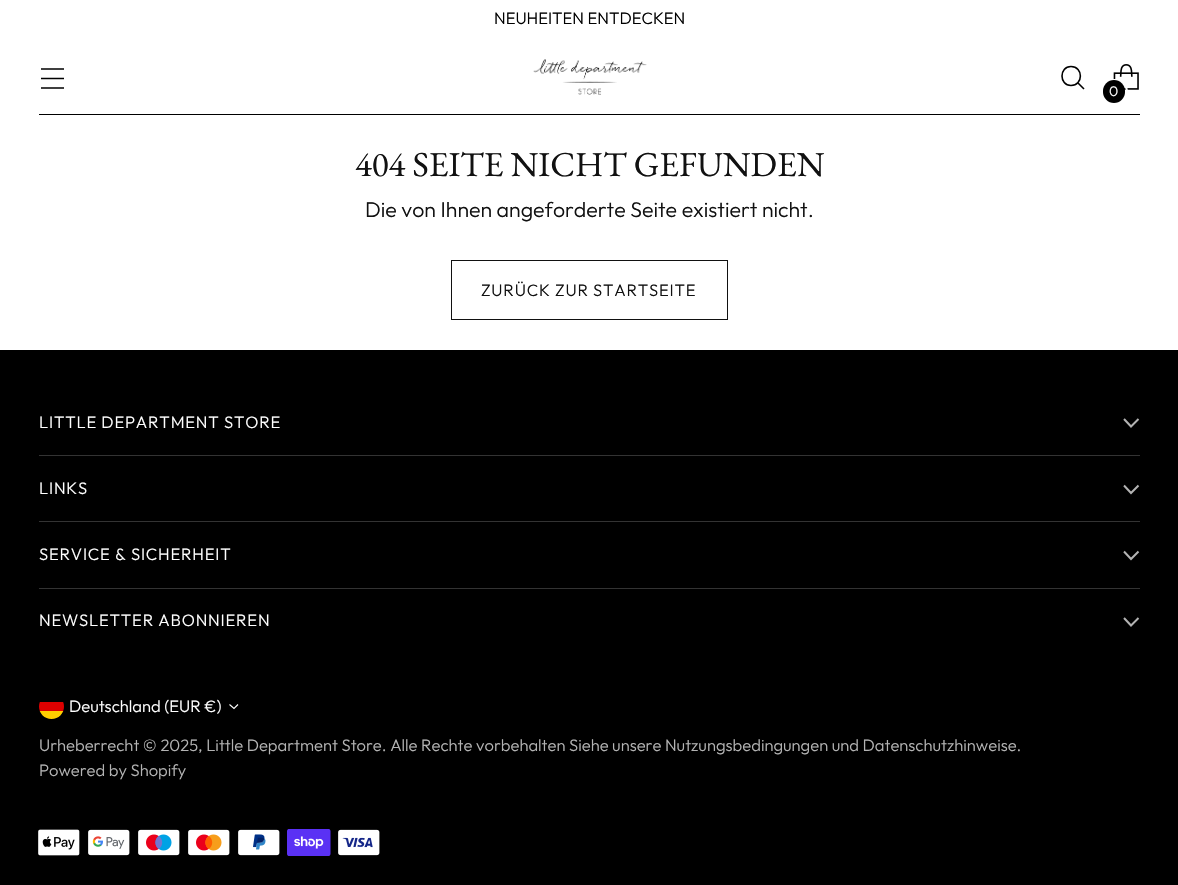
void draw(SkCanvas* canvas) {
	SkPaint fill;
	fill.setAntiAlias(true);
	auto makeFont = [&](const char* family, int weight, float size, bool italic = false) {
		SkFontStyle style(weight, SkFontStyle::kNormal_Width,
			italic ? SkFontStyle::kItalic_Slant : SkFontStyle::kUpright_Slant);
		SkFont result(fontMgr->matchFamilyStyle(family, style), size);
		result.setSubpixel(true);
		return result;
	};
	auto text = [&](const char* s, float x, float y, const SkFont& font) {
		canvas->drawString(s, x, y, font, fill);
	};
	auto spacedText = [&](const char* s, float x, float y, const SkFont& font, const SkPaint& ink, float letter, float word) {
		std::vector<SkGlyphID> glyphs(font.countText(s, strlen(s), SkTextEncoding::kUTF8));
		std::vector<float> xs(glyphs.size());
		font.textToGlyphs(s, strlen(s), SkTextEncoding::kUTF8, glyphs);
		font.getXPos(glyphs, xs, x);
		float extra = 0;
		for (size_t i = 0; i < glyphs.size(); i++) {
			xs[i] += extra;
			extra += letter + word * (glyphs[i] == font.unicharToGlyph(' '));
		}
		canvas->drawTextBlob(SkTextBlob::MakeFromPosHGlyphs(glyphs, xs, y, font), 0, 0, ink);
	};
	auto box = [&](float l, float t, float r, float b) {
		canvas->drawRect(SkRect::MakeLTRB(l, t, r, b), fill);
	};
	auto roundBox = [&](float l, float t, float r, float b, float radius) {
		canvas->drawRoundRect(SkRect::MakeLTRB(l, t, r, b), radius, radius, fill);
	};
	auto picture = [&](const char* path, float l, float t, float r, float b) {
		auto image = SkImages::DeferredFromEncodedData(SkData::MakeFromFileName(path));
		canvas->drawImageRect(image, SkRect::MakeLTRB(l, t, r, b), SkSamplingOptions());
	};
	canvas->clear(0xFFFFFFFF);
	fill.setColor(0xFF000000);
	box(39, 114, 1140, 115);
	fill.setStyle(SkPaint::kStroke_Style);
	fill.setStrokeWidth(1.6f);
	canvas->drawPath(SkPathBuilder().moveTo(41, 78.5f).lineTo(64, 78.5f).moveTo(41, 69).lineTo(64, 69).moveTo(41, 88).lineTo(64, 88).detach(), fill);
	picture("image0.png", 533, 59, 647, 95);
	fill.setStrokeCap(SkPaint::kRound_Cap);
	canvas->drawPath(SkPathBuilder().moveTo(1071, 85.5f).cubicTo(1083.5f, 85.5f, 1083.5f, 66.5f, 1071, 66.5f).cubicTo(1059, 66.5f, 1059, 85.5f, 1071, 85.5f).close().detach(), fill);
	fill.setStrokeCap(SkPaint::kButt_Cap);
	canvas->drawPath(SkPathBuilder().moveTo(1078, 83).lineTo(1084, 89).detach(), fill);
	picture("image1.png", 1113, 64, 1139, 90);
	fill.setStrokeWidth(2);
	fill.setColor(0xFFFFFFFF);
	canvas->drawRoundRect(SkRect::MakeLTRB(1102, 80, 1127, 104), 12, 12, fill);
	fill.setStyle(SkPaint::kFill_Style);
	fill.setColor(0xFF000000);
	roundBox(1103, 80, 1125, 103, 11);
	fill.setStyle(SkPaint::kStroke_Style);
	fill.setStrokeWidth(1);
	fill.setColor(0xFF111111);
	canvas->drawRect(SkRect::MakeLTRB(451.5f, 260.5f, 727.5f, 319.5f), fill);
	fill.setStyle(SkPaint::kFill_Style);
	fill.setColor(0xFF000000);
	box(0, 350, 1178, 885);
	fill.setColor(0xFF333333);
	box(39, 455, 1140, 456);
	fill.setStyle(SkPaint::kStroke_Style);
	fill.setStrokeWidth(2);
	fill.setColor(0xFFB3B3B3);
	canvas->drawPath(SkPathBuilder().moveTo(1124, 419).lineTo(1131, 426.5f).lineTo(1138.5f, 419).detach(), fill);
	fill.setStyle(SkPaint::kFill_Style);
	fill.setColor(0xFF333333);
	box(39, 521, 1140, 522);
	fill.setStyle(SkPaint::kStroke_Style);
	fill.setColor(0xFFB3B3B3);
	canvas->drawPath(SkPathBuilder().moveTo(1124, 485.5f).lineTo(1131, 493).lineTo(1138.5f, 485.5f).detach(), fill);
	fill.setStyle(SkPaint::kFill_Style);
	fill.setColor(0xFF333333);
	box(39, 588, 1140, 589);
	fill.setStyle(SkPaint::kStroke_Style);
	fill.setColor(0xFFB3B3B3);
	canvas->drawPath(SkPathBuilder().moveTo(1124, 551.5f).lineTo(1131, 559).lineTo(1138.5f, 551.5f).detach(), fill);
	canvas->drawPath(SkPathBuilder().moveTo(1124, 618).lineTo(1131, 625.5f).lineTo(1138.5f, 618).detach(), fill);
	canvas->save();
	canvas->clipPath(SkPathBuilder().moveTo(51.5f, 694).cubicTo(58.5f, 694, 64, 699.5f, 64, 706.5f).cubicTo(64, 713.5f, 58.5f, 719, 51.5f, 719).cubicTo(44.5f, 719, 39, 713.5f, 39, 706.5f).cubicTo(39, 699.5f, 44.5f, 694, 51.5f, 694).close().detach(), true);
	fill.setStyle(SkPaint::kFill_Style);
	fill.setColor(0xFFFFCE00);
	box(39, 711, 64, 719);
	fill.setColor(0xFFDD0000);
	box(39, 702, 64, 711);
	canvas->restore();
	fill.setStyle(SkPaint::kStroke_Style);
	fill.setStrokeWidth(1.1f);
	fill.setColor(0xFFFFFFFF);
	canvas->drawPath(SkPathBuilder().moveTo(229.5f, 704.5f).lineTo(234, 708.5f).lineTo(238, 704.5f).detach(), fill);
	picture("image2.png", 38, 829, 80, 856);
	picture("image3.png", 88, 829, 130, 856);
	picture("image4.png", 138, 829, 180, 856);
	picture("image5.png", 188, 829, 230, 856);
	picture("image6.png", 238, 829, 280, 856);
	picture("image7.png", 287, 829, 331, 856);
	picture("image8.png", 338, 829, 380, 856);
	auto font1 = makeFont("Outfit", 300, 16.57f);
	fill.setStyle(SkPaint::kFill_Style);
	fill.setColor(0xFF000000);
	text("NEUHEITEN ENTDECKEN", 494, 24, font1);
	auto font2 = makeFont("Outfit", 300, 14);
	fill.setColor(0xFFFFFFFF);
	text("0", 1109, 96, font2);
	auto font3 = makeFont("EB Garamond", 400, 35);
	fill.setColor(0xFF111111);
	text("404 SEITE NICHT GEFUNDEN", 355, 176, font3);
	auto font4 = makeFont("Outfit", 300, 21.3f);
	text("Die von Ihnen angeforderte Seite existiert nicht.", 365, 217, font4);
	spacedText("ZURÜCK ZUR STARTSEITE", 481, 296, font1, fill, 0.8f, 0);
	fill.setColor(0xFFFFFFFF);
	spacedText("LITTLE DEPARTMENT STORE", 39, 428, font1, fill, 0.8f, 0);
	spacedText("LINKS", 39, 494, font1, fill, 0.8f, 0);
	spacedText("SERVICE & SICHERHEIT", 39, 560, font1, fill, 0.8f, 0);
	spacedText("NEWSLETTER ABONNIEREN", 39, 626, font1, fill, 0.8f, 0);
	text("Deutschland (EUR €)", 69, 712, font1);
	fill.setColor(0xFFB3B3B3);
	text("Urheberrecht © 2025, Little Department Store. Alle Rechte vorbehalten Siehe unsere Nutzungsbedingungen und Datenschutzhinweise.", 39, 751, font1);
	text("Powered by Shopify", 39, 776, font1);
}
